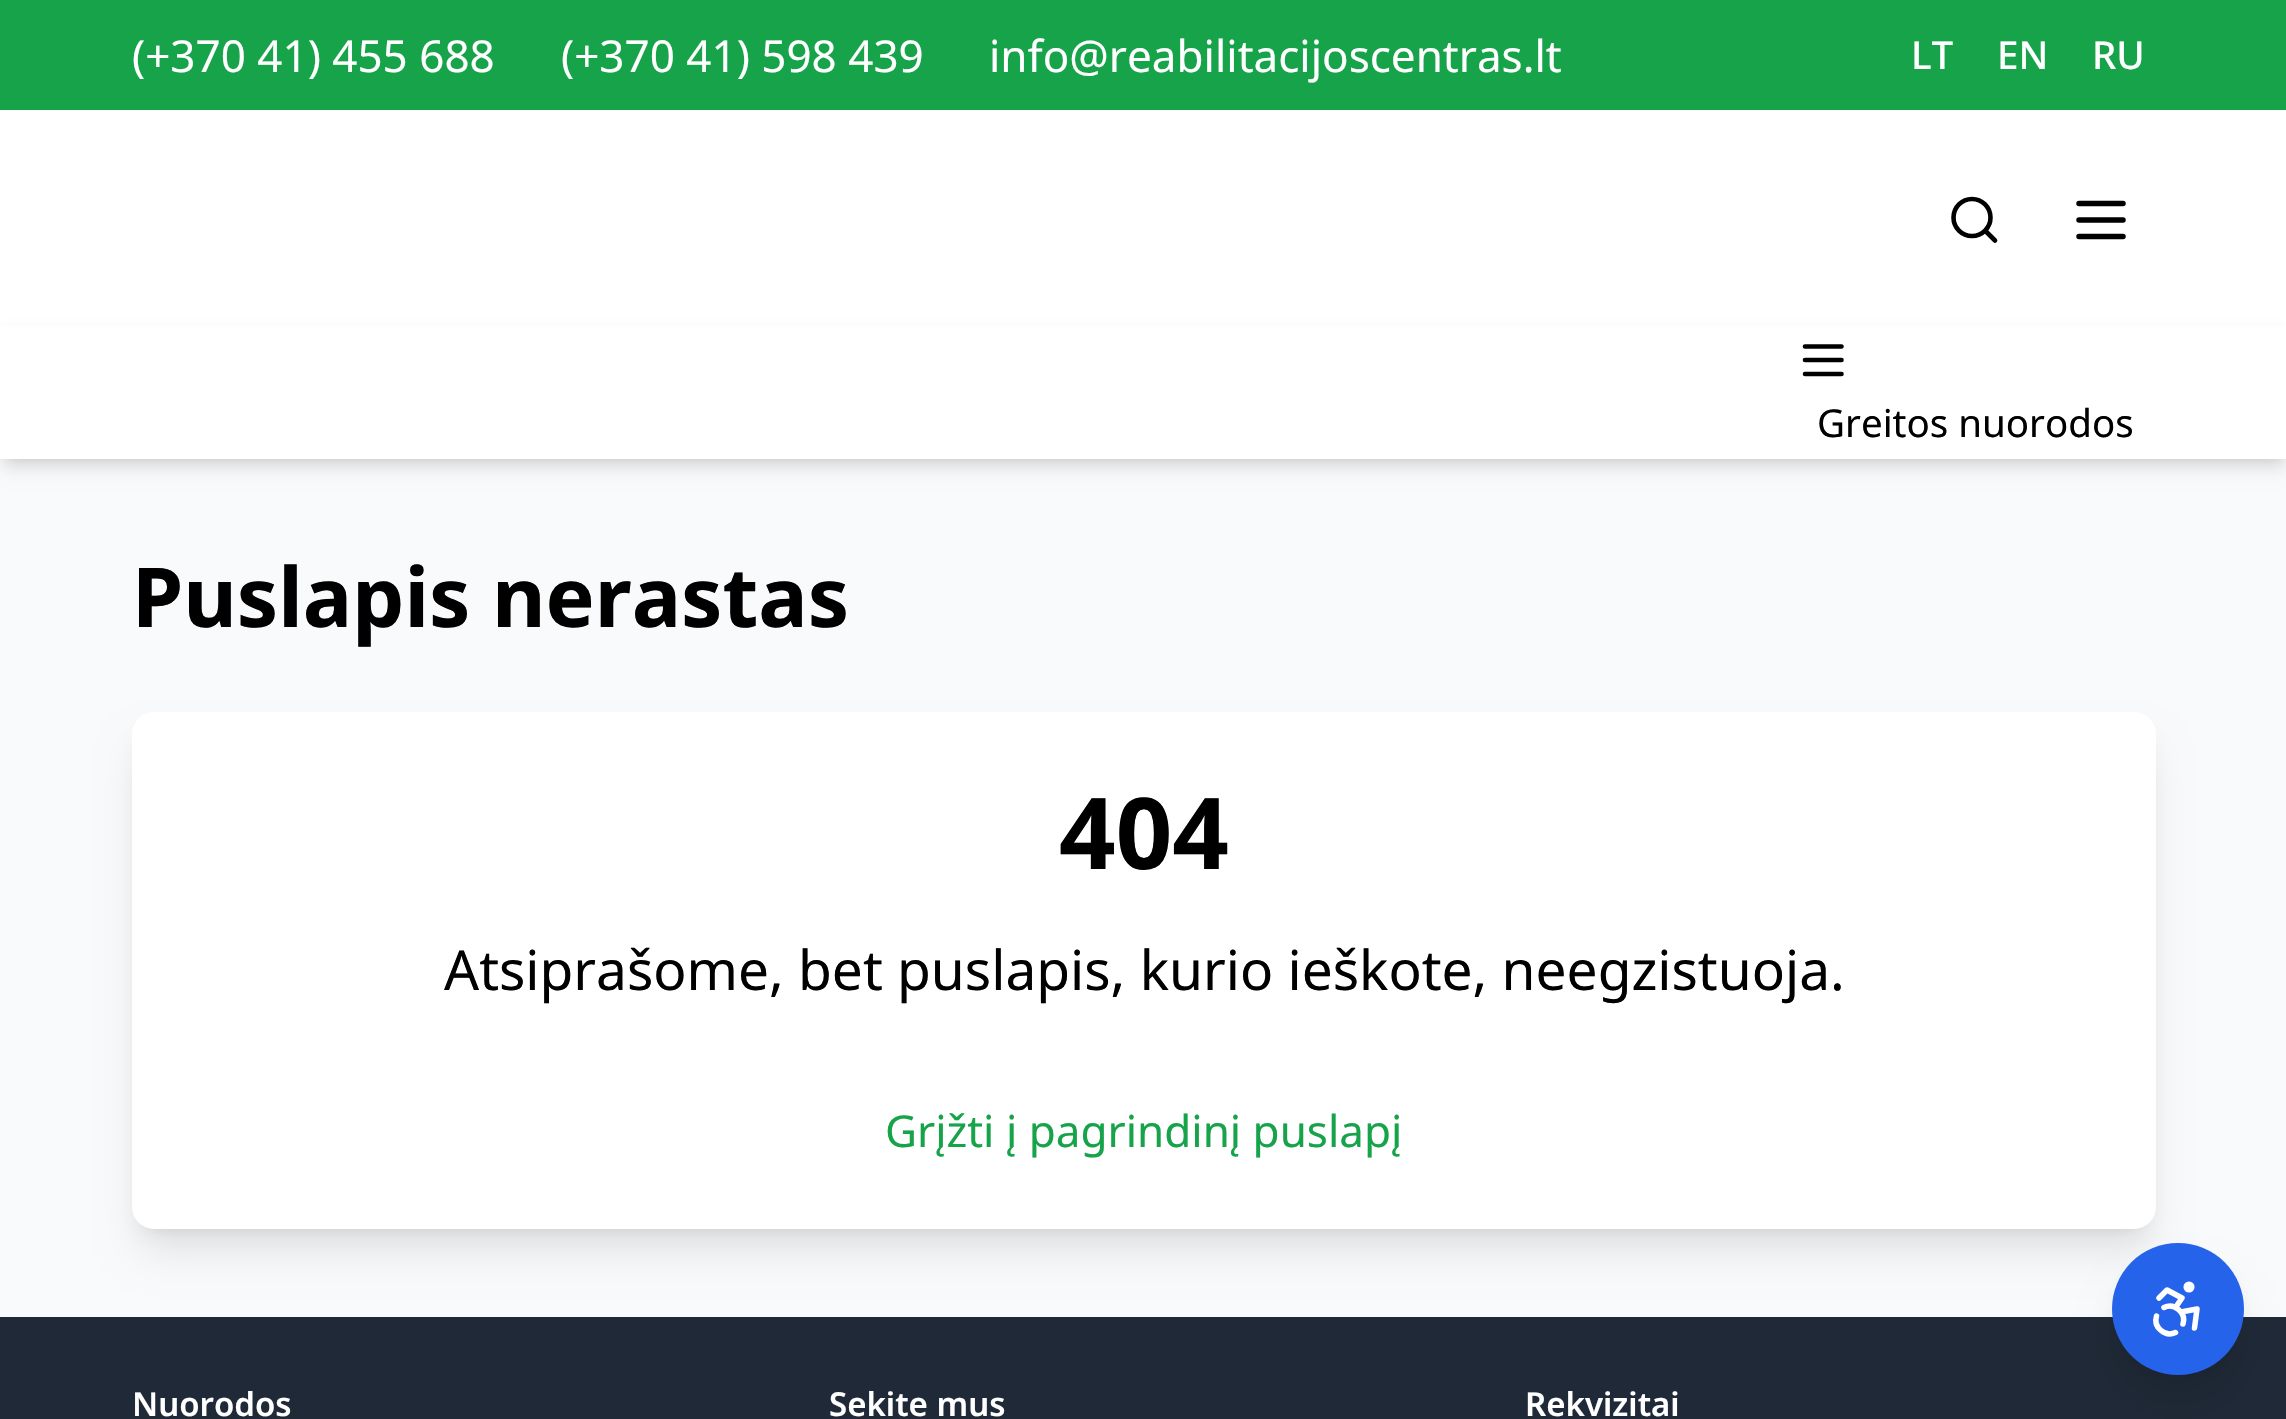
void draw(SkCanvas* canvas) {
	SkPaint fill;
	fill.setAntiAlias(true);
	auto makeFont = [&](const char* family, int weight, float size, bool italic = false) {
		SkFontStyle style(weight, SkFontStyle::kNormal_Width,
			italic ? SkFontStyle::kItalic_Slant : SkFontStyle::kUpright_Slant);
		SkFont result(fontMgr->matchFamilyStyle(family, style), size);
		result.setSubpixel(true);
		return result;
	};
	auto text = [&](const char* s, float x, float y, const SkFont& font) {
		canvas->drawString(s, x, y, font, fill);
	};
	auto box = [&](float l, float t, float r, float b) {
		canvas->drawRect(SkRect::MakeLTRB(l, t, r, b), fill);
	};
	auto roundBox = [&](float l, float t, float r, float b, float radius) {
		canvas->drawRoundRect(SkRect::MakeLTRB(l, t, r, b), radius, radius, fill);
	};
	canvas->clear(0xFFF9FAFB);
	fill.setColor(0xFF16A34A);
	box(0, 0, 2286, 110);
	fill.setColor(0xFFFFFFFF);
	box(0, 110, 2286, 327);
	fill.setStyle(SkPaint::kStroke_Style);
	fill.setStrokeWidth(4.6f);
	fill.setColor(0xFF000000);
	canvas->drawCircle(1972, 217.5f, 18.5f, fill);
	fill.setStrokeCap(SkPaint::kRound_Cap);
	fill.setStrokeJoin(SkPaint::kRound_Join);
	canvas->drawPath(SkPathBuilder().moveTo(1995, 240.5f).lineTo(1985.5f, 231).detach(), fill);
	fill.setStrokeWidth(5.5f);
	canvas->drawPath(SkPathBuilder().moveTo(2079, 220).lineTo(2123, 220).moveTo(2079, 203.5f).lineTo(2123, 203.5f).moveTo(2079, 236.5f).lineTo(2123, 236.5f).detach(), fill);
	fill.setStyle(SkPaint::kFill_Style);
	fill.setColor(0x1A000000);
	fill.setMaskFilter(SkMaskFilter::MakeBlur(kNormal_SkBlurStyle, 5.5f));
	canvas->drawRect(SkRect::MakeLTRB(6, 338, 2283, 459), fill);
	fill.setMaskFilter(nullptr);
	fill.setMaskFilter(SkMaskFilter::MakeBlur(kNormal_SkBlurStyle, 8));
	canvas->drawRect(SkRect::MakeLTRB(3, 341, 2285, 468), fill);
	fill.setMaskFilter(nullptr);
	fill.setColor(0xFFFFFFFF);
	box(0, 327, 2286, 459);
	fill.setStyle(SkPaint::kStroke_Style);
	fill.setStrokeWidth(4.6f);
	fill.setColor(0xFF000000);
	canvas->drawPath(SkPathBuilder().moveTo(1805, 360).lineTo(1841.5f, 360).moveTo(1805, 346.5f).lineTo(1841.5f, 346.5f).moveTo(1805, 374).lineTo(1841.5f, 374).detach(), fill);
	fill.setStyle(SkPaint::kFill_Style);
	fill.setColor(0x1A000000);
	fill.setMaskFilter(SkMaskFilter::MakeBlur(kNormal_SkBlurStyle, 8));
	canvas->drawRoundRect(SkRect::MakeLTRB(143, 734, 2145, 1229), 11, 11, fill);
	fill.setMaskFilter(nullptr);
	fill.setMaskFilter(SkMaskFilter::MakeBlur(kNormal_SkBlurStyle, 20.5f));
	canvas->drawRoundRect(SkRect::MakeLTRB(140, 748, 2148, 1249), 14, 14, fill);
	fill.setMaskFilter(nullptr);
	fill.setColor(0xFFFFFFFF);
	roundBox(132, 712, 2156, 1229, 22);
	fill.setColor(0xFF1F2937);
	box(0, 1317, 2286, 1419);
	fill.setColor(0x1A000000);
	fill.setMaskFilter(SkMaskFilter::MakeBlur(kNormal_SkBlurStyle, 8));
	canvas->drawRoundRect(SkRect::MakeLTRB(2123, 1265, 2233, 1375), 55, 55, fill);
	fill.setMaskFilter(nullptr);
	fill.setMaskFilter(SkMaskFilter::MakeBlur(kNormal_SkBlurStyle, 20.5f));
	canvas->drawRoundRect(SkRect::MakeLTRB(2120, 1279, 2236, 1394), 57.5f, 57.5f, fill);
	fill.setMaskFilter(nullptr);
	fill.setColor(0xFF2563EB);
	canvas->drawCircle(2178, 1309, 66, fill);
	fill.setStyle(SkPaint::kStroke_Style);
	fill.setStrokeWidth(5.5f);
	fill.setStrokeCap(SkPaint::kButt_Cap);
	fill.setStrokeJoin(SkPaint::kMiter_Join);
	fill.setColor(0xFFFFFFFF);
	canvas->drawCircle(2189, 1287, 2.8f, fill);
	fill.setStrokeCap(SkPaint::kRound_Cap);
	fill.setStrokeJoin(SkPaint::kRound_Join);
	canvas->drawPath(SkPathBuilder().moveTo(2194.5f, 1328).lineTo(2197, 1309).lineTo(2181, 1312).moveTo(2159, 1298).lineTo(2167, 1290).lineTo(2182, 1298).lineTo(2175.5f, 1307.5f).moveTo(2156.5f, 1316).cubicTo(2153, 1327, 2165, 1337.5f, 2175.5f, 1332.5f).moveTo(2183, 1324).cubicTo(2186.5f, 1313, 2174.5f, 1302.5f, 2164, 1307.5f).detach(), fill);
	auto font1 = makeFont("Noto Sans", 400, 44);
	fill.setStyle(SkPaint::kFill_Style);
	text("(+370 41) 455 688", 132, 72, font1);
	text("(+370 41) 598 439", 561, 72, font1);
	text("info@reabilitacijoscentras.lt", 989, 72, font1);
	auto font2 = makeFont("Noto Sans", 500, 38.5f);
	text("LT", 1911, 69, font2);
	text("EN", 1997, 69, font2);
	text("RU", 2092, 69, font2);
	auto font3 = makeFont("Noto Sans", 400, 38.5f);
	fill.setColor(0xFF000000);
	text("Greitos nuorodos", 1817, 437, font3);
	auto font4 = makeFont("Noto Sans", 700, 82.5f);
	text("Puslapis nerastas", 132, 627, font4);
	auto font5 = makeFont("Noto Sans", 700, 99);
	text("404", 1059, 869, font5);
	auto font6 = makeFont("Noto Sans", 400, 55);
	text("Atsiprašome, bet puslapis, kurio ieškote, neegzistuoja.", 444, 990, font6);
	fill.setColor(0xFF16A34A);
	text("Grįžti į pagrindinį puslapį", 885, 1147, font1);
	auto font7 = makeFont("Noto Sans", 600, 33);
	fill.setColor(0xFFFFFFFF);
	text("Nuorodos", 132, 1416, font7);
	text("Sekite mus", 829, 1416, font7);
	text("Rekvizitai", 1525, 1416, font7);
}
